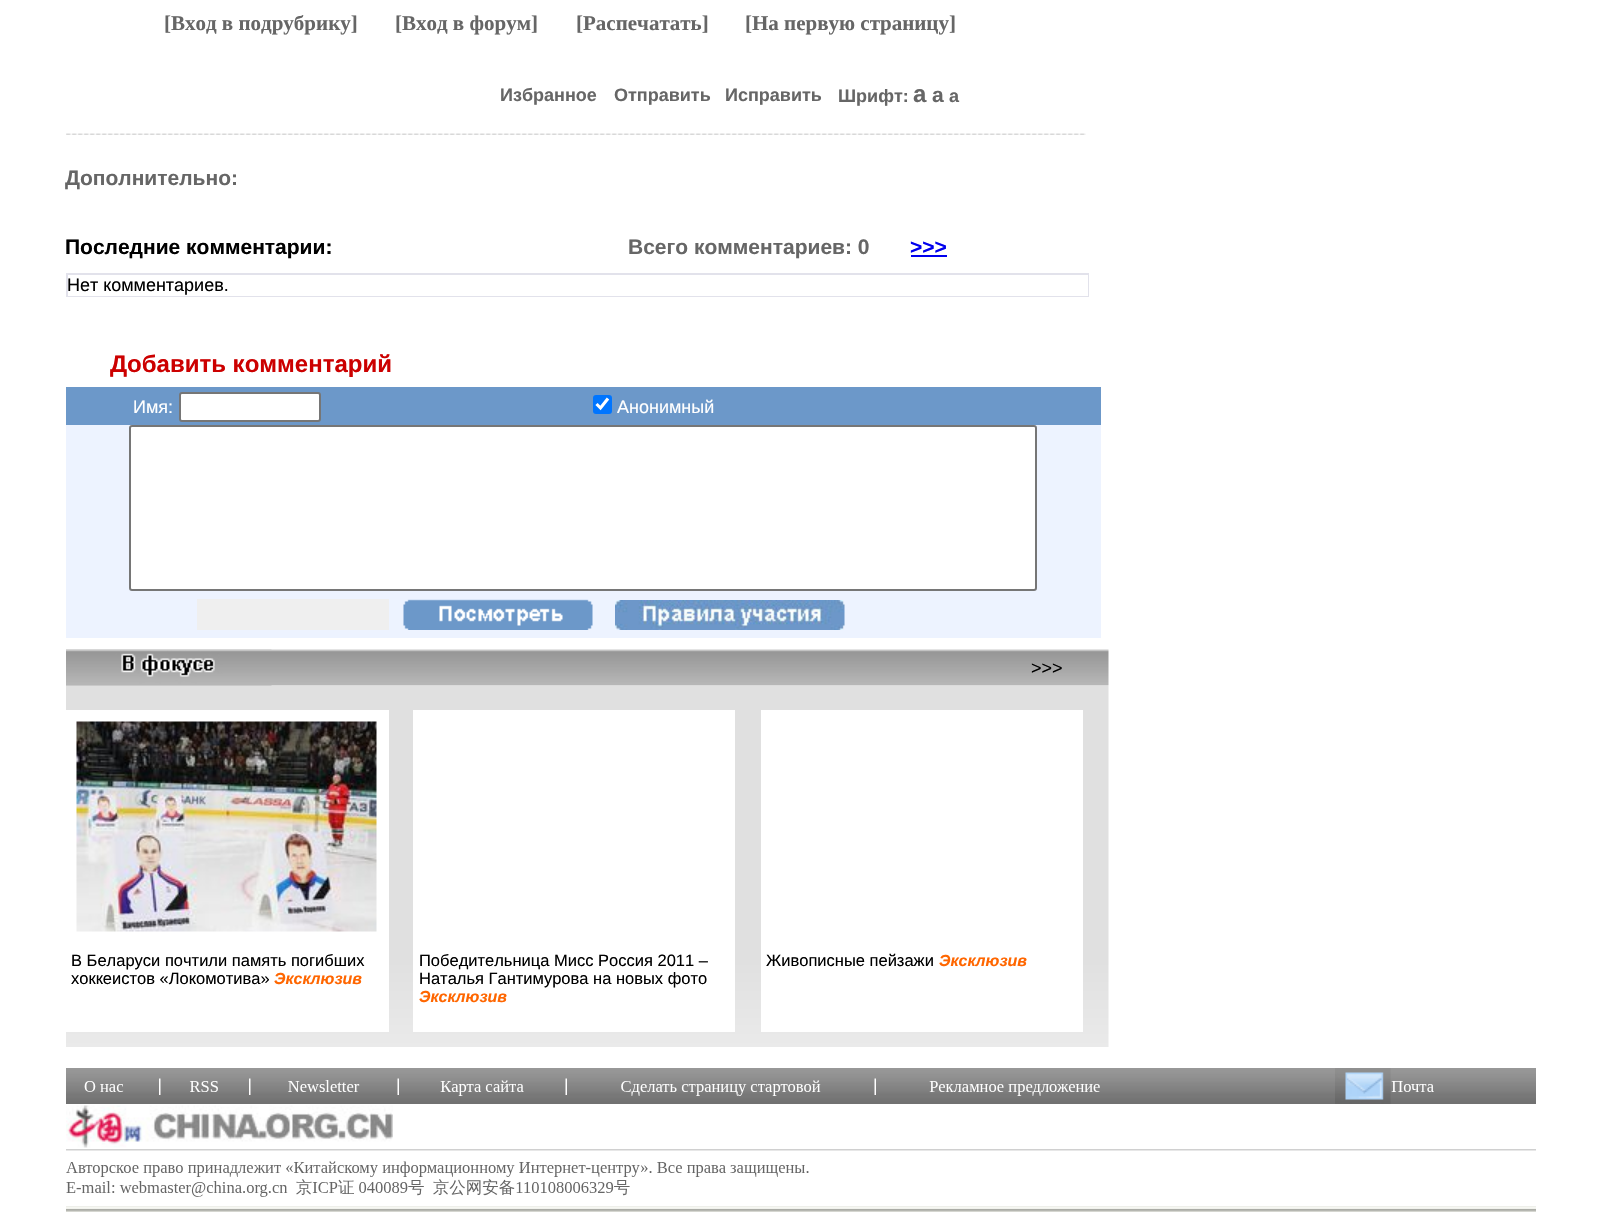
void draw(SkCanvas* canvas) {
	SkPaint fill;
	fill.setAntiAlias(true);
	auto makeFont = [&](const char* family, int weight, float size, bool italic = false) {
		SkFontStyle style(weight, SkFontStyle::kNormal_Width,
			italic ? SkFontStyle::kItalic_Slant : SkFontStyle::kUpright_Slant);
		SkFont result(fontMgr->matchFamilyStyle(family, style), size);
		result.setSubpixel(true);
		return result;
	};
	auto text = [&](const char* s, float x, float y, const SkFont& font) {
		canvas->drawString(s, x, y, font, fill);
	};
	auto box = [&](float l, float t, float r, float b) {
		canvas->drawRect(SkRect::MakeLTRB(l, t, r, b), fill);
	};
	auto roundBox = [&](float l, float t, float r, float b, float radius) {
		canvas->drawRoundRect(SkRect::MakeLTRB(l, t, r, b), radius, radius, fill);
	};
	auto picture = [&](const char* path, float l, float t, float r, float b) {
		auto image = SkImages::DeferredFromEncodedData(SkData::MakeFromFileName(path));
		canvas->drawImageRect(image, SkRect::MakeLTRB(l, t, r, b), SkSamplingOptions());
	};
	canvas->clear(0xFFFFFFFF);
	picture("image0.png", 66, 133, 1086, 135);
	fill.setColor(0xFF0000EE);
	box(911, 255, 947, 257);
	fill.setColor(0xFFE2E2EB);
	box(66, 273, 1089, 297);
	fill.setColor(0xFFFFFFFF);
	box(68, 275, 1088, 296);
	fill.setColor(0xFF6C98C9);
	box(66, 387, 1101, 425);
	fill.setColor(0xFFFFFFFF);
	canvas->drawRoundRect(SkRect::MakeLTRB(180, 393, 320, 421), 2, 2, fill);
	fill.setStyle(SkPaint::kStroke_Style);
	fill.setStrokeWidth(2);
	fill.setColor(0xFF767676);
	canvas->drawRoundRect(SkRect::MakeLTRB(180, 393, 320, 421), 2, 2, fill);
	fill.setStyle(SkPaint::kFill_Style);
	fill.setColor(0xFF0075FF);
	roundBox(593, 395, 612, 414, 3);
	fill.setStyle(SkPaint::kStroke_Style);
	fill.setStrokeWidth(3.1f);
	fill.setColor(0xFFFFFFFF);
	canvas->drawPath(SkPathBuilder().moveTo(596.5f, 404).lineTo(600.5f, 408).lineTo(608, 398.5f).detach(), fill);
	fill.setStyle(SkPaint::kFill_Style);
	fill.setColor(0xFFEDF3FF);
	box(66, 425, 1101, 591);
	fill.setColor(0xFFFFFFFF);
	canvas->drawRoundRect(SkRect::MakeLTRB(130, 426, 1036, 590), 2, 2, fill);
	fill.setStyle(SkPaint::kStroke_Style);
	fill.setStrokeWidth(2);
	fill.setColor(0xFF767676);
	canvas->drawRoundRect(SkRect::MakeLTRB(130, 426, 1036, 590), 2, 2, fill);
	fill.setStyle(SkPaint::kFill_Style);
	fill.setColor(0xFFEDF3FF);
	box(66, 591, 1101, 638);
	fill.setColor(0xFFEFEFEF);
	box(197, 599, 389, 630);
	picture("image1.png", 403, 599, 593, 630);
	picture("image2.png", 615, 600, 845, 630);
	picture("image3.png", 66, 649, 987, 686);
	picture("image4.png", 66, 649, 272, 686);
	picture("image5.png", 987, 649, 1109, 686);
	picture("image6.png", 66, 686, 1109, 1047);
	fill.setColor(0xFFFFFFFF);
	box(66, 710, 389, 1032);
	picture("image7.png", 76, 721, 377, 932);
	box(413, 710, 735, 1032);
	box(761, 710, 1083, 1032);
	picture("image8.png", 66, 1068, 1536, 1212);
	auto font1 = makeFont("Liberation Serif", 700, 21);
	fill.setColor(0xFF666666);
	text("[Вход в подрубрику]", 164, 30, font1);
	text("[Вход в форум]", 395, 30, font1);
	text("[Распечатать]", 576, 30, font1);
	text("[На первую страницу]", 745, 30, font1);
	auto font2 = makeFont("Liberation Sans", 700, 18);
	text("Избранное", 500, 101, font2);
	text("Отправить", 614, 101, font2);
	text("Исправить", 725, 101, font2);
	text("Шрифт:", 838, 102, font2);
	auto font3 = makeFont("Liberation Sans", 700, 24);
	text("a", 913, 102, font3);
	auto font4 = makeFont("Liberation Sans", 700, 21);
	text("a", 932, 102, font4);
	text("a", 949, 102, font2);
	text("Дополнительно:", 65, 185, font4);
	fill.setColor(0xFF000000);
	text("Последние комментарии:", 65, 254, font4);
	fill.setColor(0xFF666666);
	text("Всего комментариев: 0", 628, 254, font4);
	fill.setColor(0xFF0000EE);
	text(">>>", 910, 254, font4);
	auto font5 = makeFont("Liberation Sans", 400, 18);
	fill.setColor(0xFF000000);
	text("Нет комментариев.", 67, 291, font5);
	fill.setColor(0xFFCC0000);
	text("Добавить комментарий", 110, 372, font3);
	fill.setColor(0xFFFFFFFF);
	text("Имя:", 133, 413, font5);
	text("Анонимный", 617, 413, font5);
	fill.setColor(0xFF000000);
	text(">>>", 1031, 674, font5);
	auto font6 = makeFont("Liberation Sans", 400, 16.5f);
	text("В Беларуси почтили память погибших", 71, 966, font6);
	text("хоккеистов «Локомотива»", 71, 984, font6);
	auto font7 = makeFont("Liberation Sans", 700, 16, true);
	fill.setColor(0xFFFF6600);
	text("Эксклюзив", 274, 984, font7);
	fill.setColor(0xFF000000);
	text("Победительница Мисс Россия 2011 –", 419, 966, font6);
	text("Наталья Гантимурова на новых фото", 419, 984, font6);
	fill.setColor(0xFFFF6600);
	text("Эксклюзив", 419, 1002, font7);
	fill.setColor(0xFF000000);
	text("Живописные пейзажи", 766, 966, font6);
	fill.setColor(0xFFFF6600);
	text("Эксклюзив", 939, 966, font7);
}
